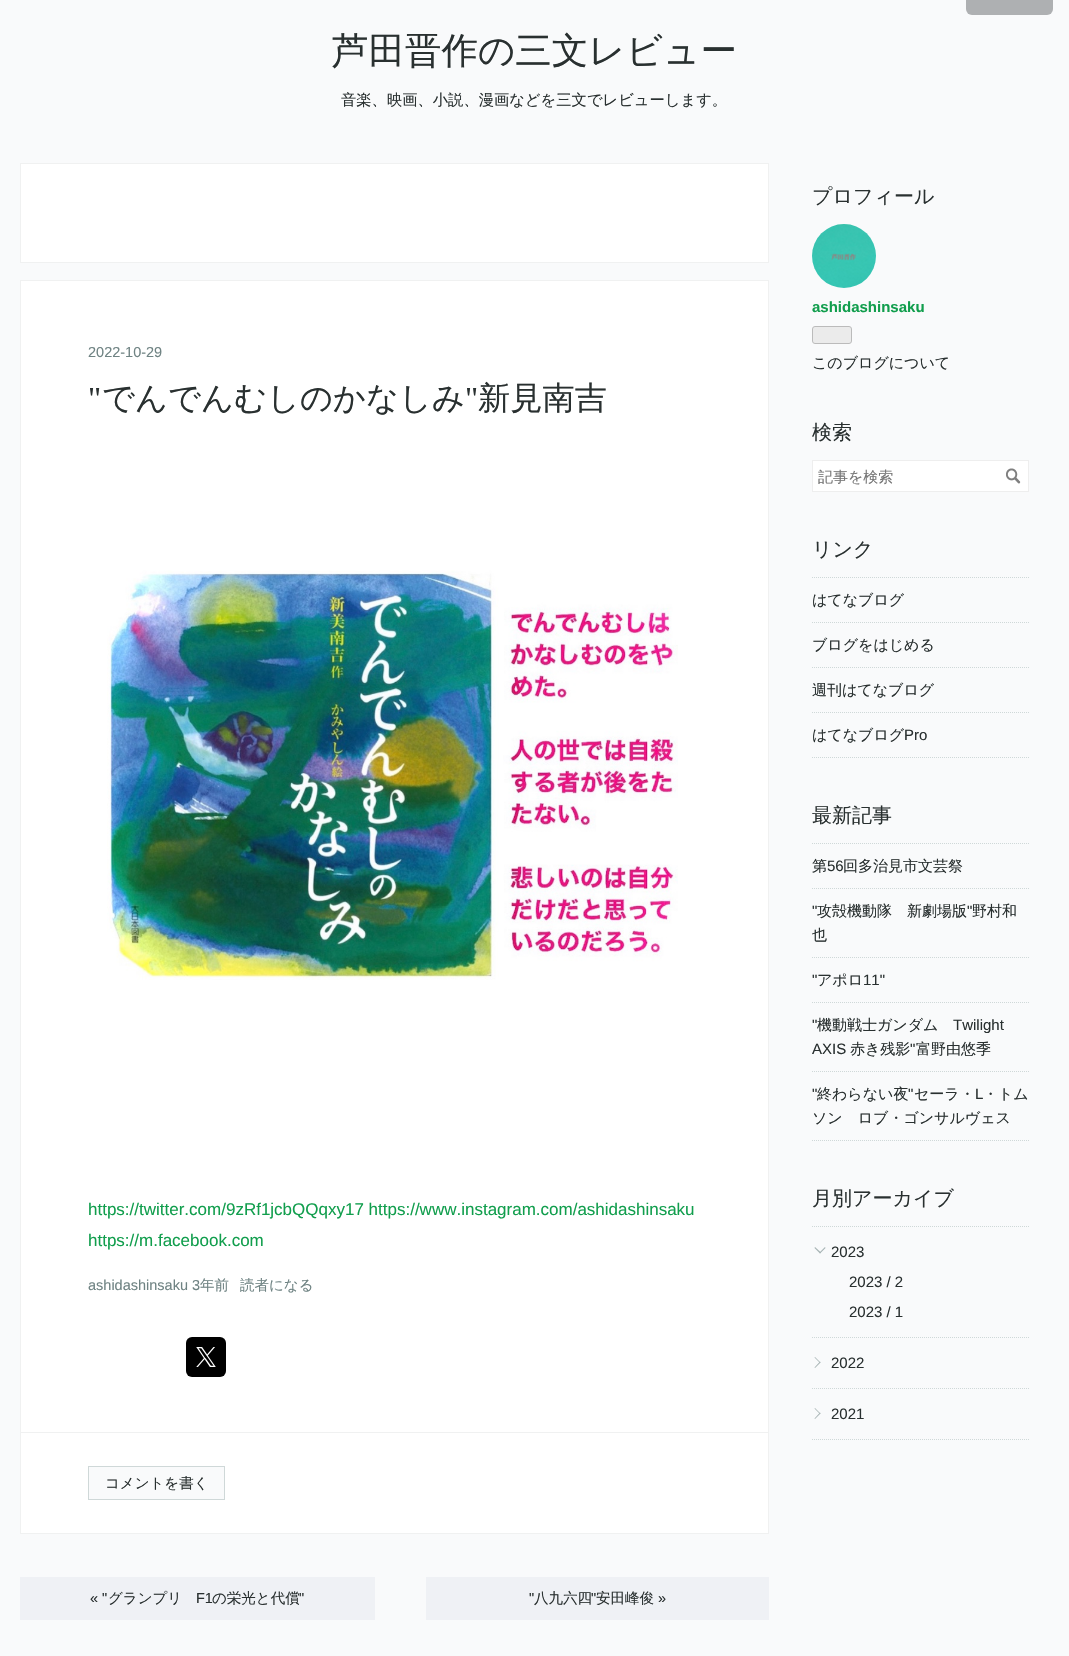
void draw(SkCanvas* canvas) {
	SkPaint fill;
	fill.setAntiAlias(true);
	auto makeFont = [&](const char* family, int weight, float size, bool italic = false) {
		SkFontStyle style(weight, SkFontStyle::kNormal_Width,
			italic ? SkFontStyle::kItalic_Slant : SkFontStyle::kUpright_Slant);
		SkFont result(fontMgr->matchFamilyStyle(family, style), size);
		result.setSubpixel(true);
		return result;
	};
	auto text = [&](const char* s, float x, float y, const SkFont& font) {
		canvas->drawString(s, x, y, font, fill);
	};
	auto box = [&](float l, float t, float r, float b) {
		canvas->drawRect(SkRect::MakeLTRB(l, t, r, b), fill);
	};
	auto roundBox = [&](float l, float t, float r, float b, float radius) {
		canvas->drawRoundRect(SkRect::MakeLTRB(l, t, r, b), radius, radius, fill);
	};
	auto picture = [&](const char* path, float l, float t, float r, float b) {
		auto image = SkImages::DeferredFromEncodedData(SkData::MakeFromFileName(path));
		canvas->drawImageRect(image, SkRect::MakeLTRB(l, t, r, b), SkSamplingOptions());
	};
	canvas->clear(0xFFF9FAFB);
	fill.setColor(0xFFAEB0B2);
	roundBox(966, -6, 1053, 15, 6);
	fill.setColor(0xFFFFFFFF);
	canvas->drawRect(SkRect::MakeLTRB(20.5f, 163.5f, 768.5f, 262.5f), fill);
	fill.setStyle(SkPaint::kStroke_Style);
	fill.setStrokeWidth(1);
	fill.setColor(0xFFF0F1F1);
	canvas->drawRect(SkRect::MakeLTRB(20.5f, 163.5f, 768.5f, 262.5f), fill);
	fill.setStyle(SkPaint::kFill_Style);
	fill.setColor(0xFFFFFFFF);
	canvas->drawRect(SkRect::MakeLTRB(20.5f, 280.5f, 768.5f, 1533.5f), fill);
	fill.setStyle(SkPaint::kStroke_Style);
	fill.setColor(0xFFF0F1F1);
	canvas->drawRect(SkRect::MakeLTRB(20.5f, 280.5f, 768.5f, 1533.5f), fill);
	picture("image0.png", 107, 570, 678, 980);
	fill.setStyle(SkPaint::kFill_Style);
	fill.setColor(0xFF000000);
	roundBox(186, 1337, 226, 1377, 6);
	picture("image1.png", 196, 1347, 216, 1367);
	fill.setColor(0xFFF0F1F1);
	box(21, 1432, 768, 1433);
	fill.setColor(0xFFF9FAFB);
	canvas->drawRect(SkRect::MakeLTRB(88.5f, 1466.5f, 224.5f, 1499.5f), fill);
	fill.setStyle(SkPaint::kStroke_Style);
	fill.setColor(0xFFCFD8D8);
	canvas->drawRect(SkRect::MakeLTRB(88.5f, 1466.5f, 224.5f, 1499.5f), fill);
	fill.setStyle(SkPaint::kFill_Style);
	fill.setColor(0xFFEFF1F5);
	box(20, 1577, 375, 1620);
	box(426, 1577, 769, 1620);
	picture("image2.png", 812, 224, 876, 288);
	fill.setColor(0xFFEBEBEB);
	canvas->drawRoundRect(SkRect::MakeLTRB(812.5f, 326.5f, 851.5f, 343.5f), 2.5f, 2.5f, fill);
	fill.setStyle(SkPaint::kStroke_Style);
	fill.setColor(0xFFBBBBBB);
	canvas->drawRoundRect(SkRect::MakeLTRB(812.5f, 326.5f, 851.5f, 343.5f), 2.5f, 2.5f, fill);
	fill.setStyle(SkPaint::kFill_Style);
	fill.setColor(0xFFFFFFFF);
	canvas->drawRect(SkRect::MakeLTRB(812.5f, 460.5f, 1028.5f, 491.5f), fill);
	fill.setStyle(SkPaint::kStroke_Style);
	fill.setColor(0xFFEEEEEE);
	canvas->drawRect(SkRect::MakeLTRB(812.5f, 460.5f, 1028.5f, 491.5f), fill);
	picture("image3.png", 1006, 468, 1021, 484);
	fill.setColor(0xFFCFD8D8);
	fill.setPathEffect(SkDashPathEffect::Make({{1, 1}}, 0));
	canvas->drawPath(SkPathBuilder().moveTo(812, 577.5f).lineTo(1029, 577.5f).detach(), fill);
	fill.setPathEffect(nullptr);
	fill.setPathEffect(SkDashPathEffect::Make({{1, 1}}, 0));
	canvas->drawPath(SkPathBuilder().moveTo(812, 622.5f).lineTo(1029, 622.5f).detach(), fill);
	fill.setPathEffect(nullptr);
	fill.setPathEffect(SkDashPathEffect::Make({{1, 1}}, 0));
	canvas->drawPath(SkPathBuilder().moveTo(812, 667.5f).lineTo(1029, 667.5f).detach(), fill);
	fill.setPathEffect(nullptr);
	fill.setPathEffect(SkDashPathEffect::Make({{1, 1}}, 0));
	canvas->drawPath(SkPathBuilder().moveTo(812, 712.5f).lineTo(1029, 712.5f).detach(), fill);
	fill.setPathEffect(nullptr);
	fill.setPathEffect(SkDashPathEffect::Make({{1, 1}}, 0));
	canvas->drawPath(SkPathBuilder().moveTo(812, 757.5f).lineTo(1029, 757.5f).detach(), fill);
	fill.setPathEffect(nullptr);
	fill.setPathEffect(SkDashPathEffect::Make({{1, 1}}, 0));
	canvas->drawPath(SkPathBuilder().moveTo(812, 843.5f).lineTo(1029, 843.5f).detach(), fill);
	fill.setPathEffect(nullptr);
	fill.setPathEffect(SkDashPathEffect::Make({{1, 1}}, 0));
	canvas->drawPath(SkPathBuilder().moveTo(812, 888.5f).lineTo(1029, 888.5f).detach(), fill);
	fill.setPathEffect(nullptr);
	fill.setPathEffect(SkDashPathEffect::Make({{1, 1}}, 0));
	canvas->drawPath(SkPathBuilder().moveTo(812, 957.5f).lineTo(1029, 957.5f).detach(), fill);
	fill.setPathEffect(nullptr);
	fill.setPathEffect(SkDashPathEffect::Make({{1, 1}}, 0));
	canvas->drawPath(SkPathBuilder().moveTo(812, 1002.5f).lineTo(1029, 1002.5f).detach(), fill);
	fill.setPathEffect(nullptr);
	fill.setPathEffect(SkDashPathEffect::Make({{1, 1}}, 0));
	canvas->drawPath(SkPathBuilder().moveTo(812, 1071.5f).lineTo(1029, 1071.5f).detach(), fill);
	fill.setPathEffect(nullptr);
	fill.setPathEffect(SkDashPathEffect::Make({{1, 1}}, 0));
	canvas->drawPath(SkPathBuilder().moveTo(812, 1140.5f).lineTo(1029, 1140.5f).detach(), fill);
	fill.setPathEffect(nullptr);
	fill.setPathEffect(SkDashPathEffect::Make({{1, 1}}, 0));
	canvas->drawPath(SkPathBuilder().moveTo(812, 1226.5f).lineTo(1029, 1226.5f).detach(), fill);
	fill.setPathEffect(nullptr);
	fill.setStyle(SkPaint::kFill_Style);
	fill.setColor(0xFFA6B3B3);
	canvas->drawPath(SkPathBuilder().moveTo(825.5f, 1248).lineTo(820, 1253.5f).lineTo(819.5f, 1252.5f).lineTo(825, 1247).close().detach(), fill);
	canvas->drawPath(SkPathBuilder().moveTo(821, 1252.5f).lineTo(820, 1253.5f).lineTo(814.5f, 1248).lineTo(815, 1247).close().detach(), fill);
	fill.setStyle(SkPaint::kStroke_Style);
	fill.setColor(0xFFCFD8D8);
	fill.setPathEffect(SkDashPathEffect::Make({{1, 1}}, 0));
	canvas->drawPath(SkPathBuilder().moveTo(812, 1337.5f).lineTo(1029, 1337.5f).detach(), fill);
	fill.setPathEffect(nullptr);
	fill.setStyle(SkPaint::kFill_Style);
	fill.setColor(0xFFA6B3B3);
	canvas->drawPath(SkPathBuilder().moveTo(815, 1357).lineTo(820.5f, 1362.5f).lineTo(820, 1363).lineTo(814.5f, 1357.5f).close().detach(), fill);
	fill.setStyle(SkPaint::kStroke_Style);
	fill.setColor(0xFFCFD8D8);
	fill.setPathEffect(SkDashPathEffect::Make({{1, 1}}, 0));
	canvas->drawPath(SkPathBuilder().moveTo(812, 1388.5f).lineTo(1029, 1388.5f).detach(), fill);
	fill.setPathEffect(nullptr);
	fill.setStyle(SkPaint::kFill_Style);
	fill.setColor(0xFFA6B3B3);
	canvas->drawPath(SkPathBuilder().moveTo(820, 1361.5f).lineTo(820.5f, 1362.5f).lineTo(815, 1368).lineTo(814.5f, 1367.5f).close().moveTo(815, 1408).lineTo(820.5f, 1413.5f).lineTo(820, 1414).lineTo(814.5f, 1408.5f).close().detach(), fill);
	fill.setStyle(SkPaint::kStroke_Style);
	fill.setColor(0xFFCFD8D8);
	fill.setPathEffect(SkDashPathEffect::Make({{1, 1}}, 0));
	canvas->drawPath(SkPathBuilder().moveTo(812, 1439.5f).lineTo(1029, 1439.5f).detach(), fill);
	fill.setPathEffect(nullptr);
	fill.setStyle(SkPaint::kFill_Style);
	fill.setColor(0xFFA6B3B3);
	canvas->drawPath(SkPathBuilder().moveTo(820, 1412.5f).lineTo(820.5f, 1413.5f).lineTo(815, 1419).lineTo(814.5f, 1418.5f).close().detach(), fill);
	auto font1 = makeFont("WenQuanYi Zen Hei", 500, 36.5f);
	fill.setColor(0xFF293030);
	text("芦田晋作の三文レビュー", 332, 63, font1);
	auto font2 = makeFont("WenQuanYi Zen Hei", 500, 15.3f);
	text("音楽、映画、小説、漫画などを三文でレビューします。", 341, 105, font2);
	auto font3 = makeFont("Liberation Sans", 400, 14.5f);
	fill.setColor(0xFF6F8383);
	text("2022-10-29", 88, 357, font3);
	auto font4 = makeFont("Liberation Serif", 400, 32.25f);
	fill.setColor(0xFF293030);
	text("\"", 88, 409, font4);
	auto font5 = makeFont("WenQuanYi Zen Hei", 500, 32.25f);
	text("でんでんむしのかなしみ", 102, 409, font5);
	text("\"", 465, 409, font4);
	text("新見南吉", 478, 409, font5);
	auto font6 = makeFont("Liberation Sans", 400, 17);
	fill.setColor(0xFF119E4D);
	text("https://twitter.com/9zRf1jcbQQqxy17 https://www.instagram.com/ashidashinsaku", 88, 1215, font6);
	text("https://m.facebook.com", 88, 1246, font6);
	fill.setColor(0xFF6F8383);
	text("ashidashinsaku 3", 88, 1290, font3);
	auto font7 = makeFont("WenQuanYi Zen Hei", 500, 14.5f);
	text("年前", 200, 1290, font7);
	text("読者になる", 240, 1290, font7);
	fill.setColor(0xFF293030);
	text("コメントを書く", 105, 1488, font7);
	text("« \"", 90, 1603, font3);
	text("グランプリ", 108, 1603, font7);
	text("F1", 196, 1603, font3);
	text("の栄光と代償", 212, 1603, font7);
	text("\"", 299, 1603, font3);
	text("\"", 529, 1603, font3);
	text("八九六四", 534, 1603, font7);
	text("\"", 591, 1603, font3);
	text("安田峰俊", 596, 1603, font7);
	text("»", 658, 1603, font3);
	auto font8 = makeFont("WenQuanYi Zen Hei", 500, 20);
	text("プロフィール", 812, 203, font8);
	auto font9 = makeFont("Liberation Sans", 700, 15);
	fill.setColor(0xFF119E4D);
	text("ashidashinsaku", 812, 312, font9);
	auto font10 = makeFont("WenQuanYi Zen Hei", 500, 15);
	fill.setColor(0xFF293030);
	text("このブログについて", 812, 368, font10);
	text("検索", 812, 439, font8);
	fill.setColor(0xFF757575);
	text("記事を検索", 818, 482, font10);
	fill.setColor(0xFF293030);
	text("リンク", 812, 556, font8);
	text("はてなブログ", 812, 605, font10);
	text("ブログをはじめる", 812, 650, font10);
	text("週刊はてなブログ", 812, 695, font10);
	text("はてなブログ", 812, 740, font10);
	auto font11 = makeFont("Liberation Sans", 400, 15);
	text("Pro", 904, 740, font11);
	text("最新記事", 812, 822, font8);
	text("第", 812, 871, font10);
	text("56", 827, 871, font11);
	text("回多治見市文芸祭", 843, 871, font10);
	text("\"", 812, 916, font11);
	text("攻殻機動隊　新劇場版", 817, 916, font10);
	text("\"", 967, 916, font11);
	text("野村和", 972, 916, font10);
	text("也", 812, 940, font10);
	text("\"", 812, 985, font11);
	text("アポロ", 817, 985, font10);
	text("11\"", 863, 985, font11);
	text("\"", 812, 1030, font11);
	text("機動戦士ガンダム", 817, 1030, font10);
	text("Twilight", 953, 1030, font11);
	text("AXIS", 812, 1054, font11);
	text("赤き残影", 850, 1054, font10);
	text("\"", 910, 1054, font11);
	text("富野由悠季", 916, 1054, font10);
	text("\"", 812, 1099, font11);
	text("終わらない夜", 817, 1099, font10);
	text("\"", 908, 1099, font11);
	text("セーラ・", 914, 1099, font10);
	text("L", 975, 1099, font11);
	text("・トム", 983, 1099, font10);
	text("ソン　ロブ・ゴンサルヴェス", 812, 1123, font10);
	text("月別アーカイブ", 812, 1205, font8);
	text("2023", 831, 1257, font11);
	text("2023 / 2", 849, 1287, font11);
	text("2023 / 1", 849, 1317, font11);
	text("2022", 831, 1368, font11);
	text("2021", 831, 1419, font11);
}
